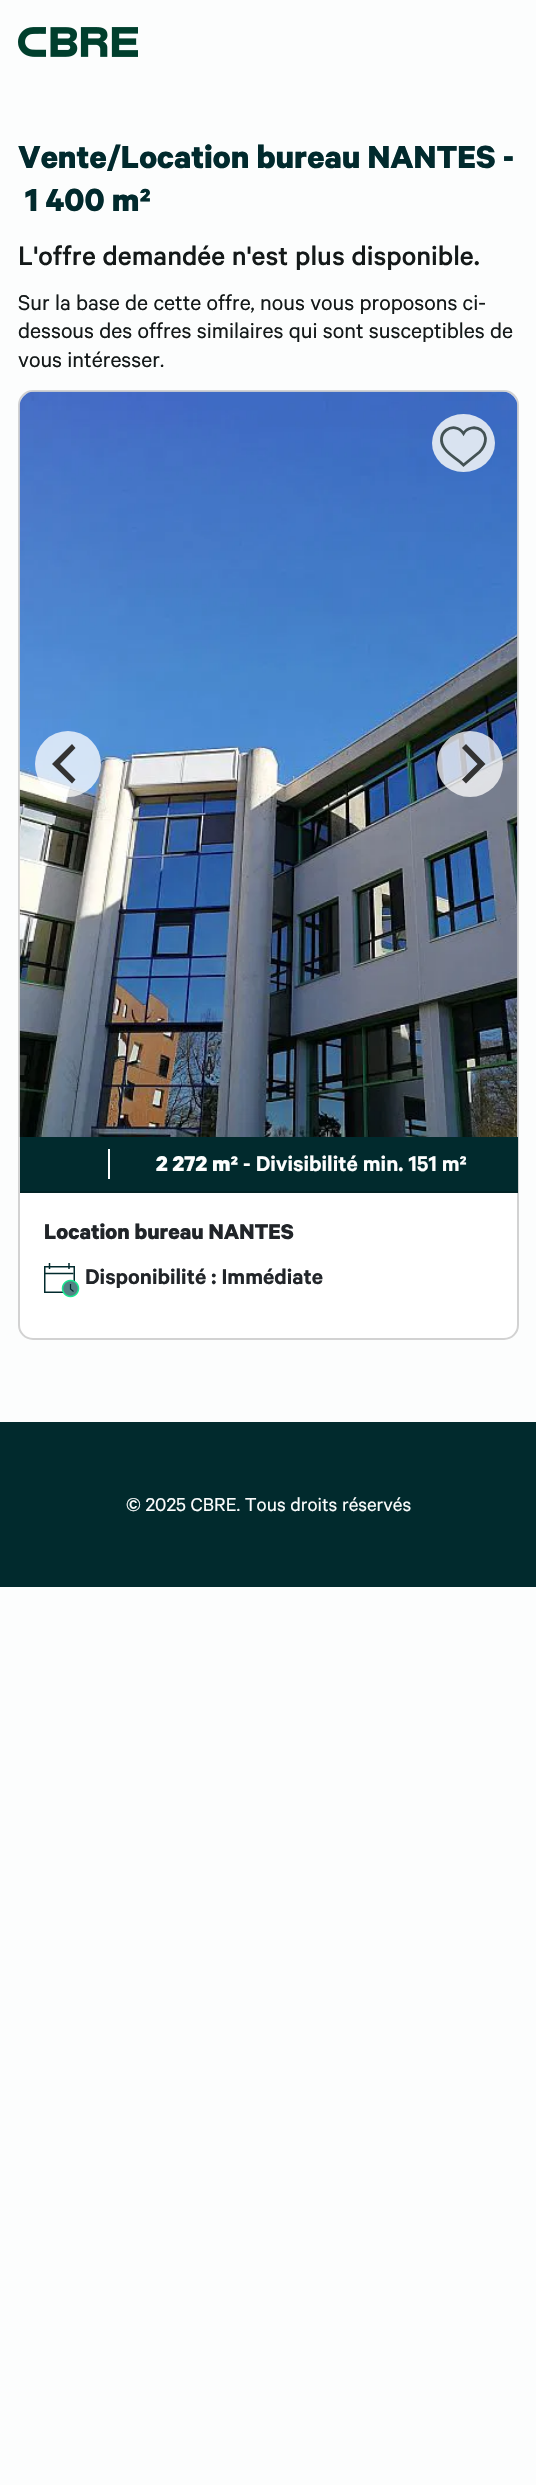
void draw(SkCanvas* canvas) {
	SkPaint fill;
	fill.setAntiAlias(true);
	auto makeFont = [&](const char* family, int weight, float size, bool italic = false) {
		SkFontStyle style(weight, SkFontStyle::kNormal_Width,
			italic ? SkFontStyle::kItalic_Slant : SkFontStyle::kUpright_Slant);
		SkFont result(fontMgr->matchFamilyStyle(family, style), size);
		result.setSubpixel(true);
		return result;
	};
	auto text = [&](const char* s, float x, float y, const SkFont& font) {
		canvas->drawString(s, x, y, font, fill);
	};
	auto box = [&](float l, float t, float r, float b) {
		canvas->drawRect(SkRect::MakeLTRB(l, t, r, b), fill);
	};
	auto picture = [&](const char* path, float l, float t, float r, float b) {
		auto image = SkImages::DeferredFromEncodedData(SkData::MakeFromFileName(path));
		canvas->drawImageRect(image, SkRect::MakeLTRB(l, t, r, b), SkSamplingOptions());
	};
	canvas->clear(0xFFFCFDFD);
	picture("image0.png", 18, 27, 138, 57);
	fill.setColor(0xFFFFFFFF);
	canvas->drawRoundRect(SkRect::MakeLTRB(19, 391, 518, 1339), 14, 14, fill);
	fill.setStyle(SkPaint::kStroke_Style);
	fill.setStrokeWidth(2);
	fill.setColor(0xFFD2D2D2);
	canvas->drawRoundRect(SkRect::MakeLTRB(19, 391, 518, 1339), 14, 14, fill);
	picture("image1.png", 19, 391, 518, 1137);
	fill.setStyle(SkPaint::kFill_Style);
	fill.setColor(0xBFFFFFFF);
	canvas->drawCircle(68, 764, 33, fill);
	fill.setColor(0xFF333333);
	canvas->drawPath(SkPathBuilder().moveTo(52, 764).lineTo(72, 783.5f).lineTo(75.5f, 779.5f).lineTo(60, 764).lineTo(75.5f, 748).lineTo(72, 744).close().detach(), fill);
	fill.setColor(0xBFFFFFFF);
	canvas->drawCircle(470, 764, 33, fill);
	fill.setColor(0xFF333333);
	canvas->drawPath(SkPathBuilder().moveTo(485.5f, 764).lineTo(466, 744).lineTo(462, 748).lineTo(477.5f, 764).lineTo(462, 779.5f).lineTo(466, 783.5f).close().detach(), fill);
	fill.setColor(0xD9F5F7F8);
	canvas->drawOval(SkRect::MakeLTRB(432, 414, 495, 472), fill);
	fill.setStyle(SkPaint::kStroke_Style);
	fill.setStrokeWidth(2.8f);
	fill.setColor(0xFF435254);
	canvas->drawPath(SkPathBuilder().moveTo(481, 430).cubicTo(475.5f, 426, 467, 427.5f, 463.5f, 433.5f).cubicTo(454.5f, 419.5f, 433, 433, 445, 449).cubicTo(449.5f, 455.5f, 458, 459, 463.5f, 465).lineTo(479.5f, 452).cubicTo(485.5f, 446, 488.5f, 436, 481, 430).close().detach(), fill);
	fill.setStyle(SkPaint::kFill_Style);
	fill.setColor(0xFF012A2D);
	box(20, 1137, 518, 1191);
	fill.setColor(0xFF012325);
	box(20, 1191, 518, 1193);
	fill.setColor(0xFFFCFDFD);
	box(108, 1149, 110, 1179);
	picture("image2.png", 44, 1263, 80, 1298);
	fill.setColor(0xFF012A2D);
	box(0, 1422, 536, 1587);
	auto font1 = makeFont("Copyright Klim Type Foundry", 700, 36);
	text("Vente/Location bureau NANTES -", 18, 168, font1);
	text("1 400 m²", 25, 211, font1);
	auto font2 = makeFont("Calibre", 500, 30);
	fill.setColor(0xFF141919);
	text("L'offre demandée n'est plus disponible.", 18, 265, font2);
	auto font3 = makeFont("Copyright Klim Type Foundry", 400, 24);
	text("Sur la base de cette offre, nous vous proposons ci-", 18, 310, font3);
	text("dessous des offres similaires qui sont susceptibles de", 18, 338, font3);
	text("vous intéresser.", 18, 367, font3);
	auto font4 = makeFont("Copyright Klim Type Foundry", 700, 24);
	fill.setColor(0xFFFCFDFD);
	text("2 272 m²", 156, 1171, font4);
	auto font5 = makeFont("Calibre", 600, 24);
	text("- Divisibilité min. 151 m²", 243, 1171, font5);
	fill.setColor(0xFF212529);
	text("Location bureau NANTES", 44, 1239, font4);
	text("Disponibilité : Immédiate", 85, 1284, font5);
	auto font6 = makeFont("Copyright Klim Type Foundry", 400, 21);
	fill.setColor(0xFFFCFDFD);
	text("© 2025 CBRE. Tous droits réservés", 126, 1511, font6);
}
